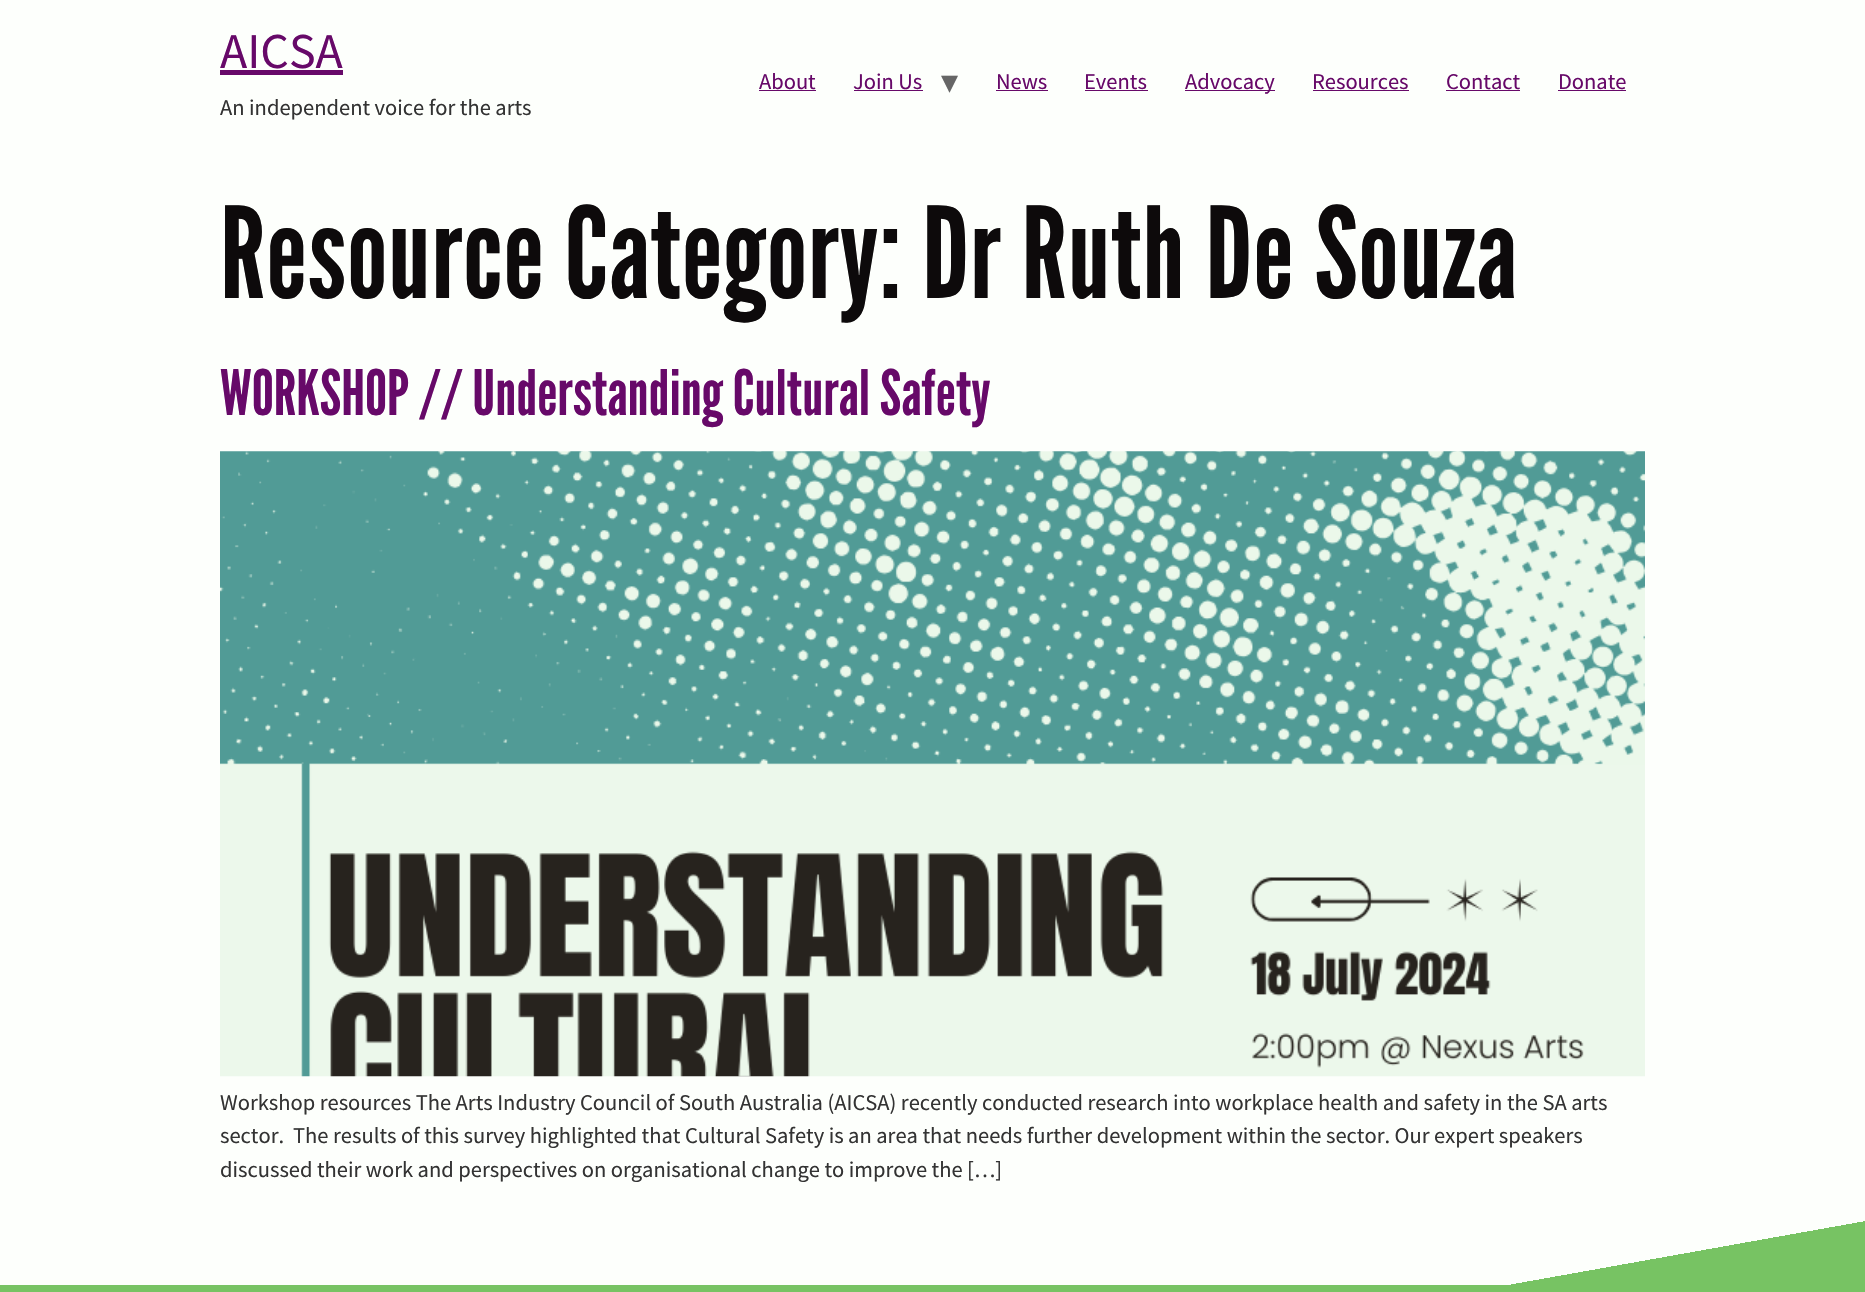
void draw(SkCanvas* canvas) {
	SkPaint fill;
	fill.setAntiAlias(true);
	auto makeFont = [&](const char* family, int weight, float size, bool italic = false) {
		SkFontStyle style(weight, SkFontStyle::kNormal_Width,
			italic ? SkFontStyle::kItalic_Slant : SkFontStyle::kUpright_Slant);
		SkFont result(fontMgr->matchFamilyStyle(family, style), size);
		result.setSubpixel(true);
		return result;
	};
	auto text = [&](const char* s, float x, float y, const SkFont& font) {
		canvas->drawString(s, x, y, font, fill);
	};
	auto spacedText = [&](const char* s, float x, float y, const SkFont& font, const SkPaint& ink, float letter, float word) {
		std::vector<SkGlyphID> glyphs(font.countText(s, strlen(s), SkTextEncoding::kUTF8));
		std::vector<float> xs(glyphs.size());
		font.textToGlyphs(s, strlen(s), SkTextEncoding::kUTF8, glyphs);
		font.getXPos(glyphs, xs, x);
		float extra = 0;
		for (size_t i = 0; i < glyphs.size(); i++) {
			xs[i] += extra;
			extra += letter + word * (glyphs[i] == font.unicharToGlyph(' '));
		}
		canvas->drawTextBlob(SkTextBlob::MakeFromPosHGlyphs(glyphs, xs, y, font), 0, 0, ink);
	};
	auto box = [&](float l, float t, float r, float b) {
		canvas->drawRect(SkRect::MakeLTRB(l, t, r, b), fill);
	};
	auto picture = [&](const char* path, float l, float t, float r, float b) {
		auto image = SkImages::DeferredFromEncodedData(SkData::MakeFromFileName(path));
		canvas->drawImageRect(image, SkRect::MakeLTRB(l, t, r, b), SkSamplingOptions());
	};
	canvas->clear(0xFFFDFFFC);
	fill.setColor(0xFF670969);
	box(220, 70, 343, 75);
	box(759, 90, 816, 91);
	box(854, 90, 923, 91);
	box(996, 90, 1048, 91);
	box(1085, 90, 1148, 91);
	box(1185, 90, 1275, 91);
	box(1313, 90, 1409, 91);
	box(1446, 90, 1520, 91);
	box(1558, 90, 1626, 91);
	picture("image0.png", 220, 451, 1645, 1077);
	{
		const SkColor colors[] = {0xFF77C363, 0xFFFDFFFC};
		const float stops[] = {0.15f, 0.15f};
		const SkPoint ends[] = {{968, 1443}, {897, 1046}};
		fill.setShader(SkGradientShader::MakeLinear(ends, colors, stops, 2, SkTileMode::kClamp));
		fill.setAlpha(255);
	}
	box(1511, 1221, 1865, 1285);
	fill.setShader(nullptr);
	fill.setColor(0xFF77C363);
	box(0, 1285, 1865, 1292);
	auto font1 = makeFont("Source Sans Pro", 400, 50);
	fill.setColor(0xFF670969);
	text("AICSA", 220, 68, font1);
	auto font2 = makeFont("Source Sans Pro", 400, 22.5f);
	fill.setColor(0xFF333333);
	text("An independent voice for the arts", 220, 115, font2);
	fill.setColor(0xFF670969);
	text("About", 759, 89, font2);
	text("Join Us", 853, 89, font2);
	auto font3 = makeFont("DejaVu Sans", 400, 34);
	fill.setColor(0xFF666666);
	text("▾", 941, 93, font3);
	fill.setColor(0xFF670969);
	text("News", 996, 89, font2);
	text("Events", 1084, 89, font2);
	text("Advocacy", 1185, 89, font2);
	text("Resources", 1312, 89, font2);
	text("Contact", 1446, 89, font2);
	text("Donate", 1558, 89, font2);
	auto font4 = makeFont("League Gothic", 400, 126.25f);
	fill.setColor(0xFF0D0A0B);
	spacedText("Resource Category: Dr Ruth De Souza", 220, 298, font4, fill, 0.6f, 0);
	auto font5 = makeFont("League Gothic", 400, 62.5f);
	fill.setColor(0xFF670969);
	text("WORKSHOP // Understanding Cultural Safety", 220, 415, font5);
	fill.setColor(0xFF333333);
	text("Workshop resources The Arts Industry Council of South Australia (AICSA) recently conducted research into workplace health and safety in the SA arts", 220, 1110, font2);
	text("sector.  The results of this survey highlighted that Cultural Safety is an area that needs further development within the sector. Our expert speakers", 220, 1143, font2);
	text("discussed their work and perspectives on organisational change to improve the […]", 220, 1177, font2);
}
